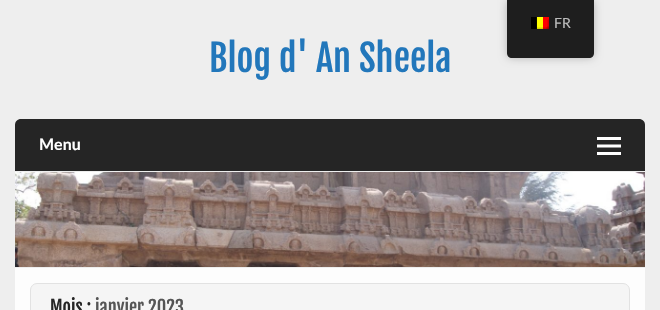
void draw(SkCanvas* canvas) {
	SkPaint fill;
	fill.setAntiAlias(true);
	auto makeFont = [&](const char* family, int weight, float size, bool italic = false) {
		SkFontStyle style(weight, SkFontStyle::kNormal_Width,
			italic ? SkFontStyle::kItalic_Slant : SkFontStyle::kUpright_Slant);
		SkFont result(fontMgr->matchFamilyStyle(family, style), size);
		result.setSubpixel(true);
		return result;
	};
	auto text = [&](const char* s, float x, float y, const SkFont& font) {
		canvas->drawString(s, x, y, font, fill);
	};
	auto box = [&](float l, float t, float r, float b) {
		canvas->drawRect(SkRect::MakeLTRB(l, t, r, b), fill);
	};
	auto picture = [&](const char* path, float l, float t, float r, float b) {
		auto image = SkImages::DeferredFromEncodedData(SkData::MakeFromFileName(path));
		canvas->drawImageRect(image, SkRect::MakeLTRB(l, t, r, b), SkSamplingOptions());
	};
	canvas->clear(0xFFEEEEEE);
	fill.setColor(0x40000000);
	fill.setMaskFilter(SkMaskFilter::MakeBlur(kNormal_SkBlurStyle, 4));
	canvas->drawRoundRect(SkRect::MakeLTRB(507, 0, 594, 58), 5, 5, fill);
	fill.setMaskFilter(nullptr);
	fill.setColor(0xFF1E1E1E);
	canvas->drawPath(SkPathBuilder().moveTo(507, 0).lineTo(594, 0).lineTo(594, 53).cubicTo(594, 56, 592, 58, 589, 58).lineTo(512, 58).cubicTo(509, 58, 507, 56, 507, 53).close().detach(), fill);
	picture("image0.png", 531, 17, 549, 29);
	fill.setColor(0xFF252525);
	canvas->drawPath(SkPathBuilder().moveTo(21, 119).lineTo(639, 119).cubicTo(642.5f, 119, 645, 121.5f, 645, 125).lineTo(645, 171).lineTo(15, 171).lineTo(15, 125).cubicTo(15, 121.5f, 17.5f, 119, 21, 119).close().detach(), fill);
	picture("image1.png", 597, 137, 621, 155);
	picture("image2.png", 15, 172, 645, 267);
	fill.setColor(0xFFFDFDFD);
	box(15, 268, 645, 310);
	fill.setColor(0xFFF5F5F5);
	canvas->drawRoundRect(SkRect::MakeLTRB(30.5f, 283.5f, 629.5f, 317.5f), 6.5f, 6.5f, fill);
	fill.setStyle(SkPaint::kStroke_Style);
	fill.setStrokeWidth(1);
	fill.setColor(0xFFE2E2E2);
	canvas->drawRoundRect(SkRect::MakeLTRB(30.5f, 283.5f, 629.5f, 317.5f), 6.5f, 6.5f, fill);
	auto font1 = makeFont("Lato", 400, 14);
	fill.setStyle(SkPaint::kFill_Style);
	fill.setColor(0xFFBDBDBD);
	text("FR", 554, 28, font1);
	auto font2 = makeFont("Fjalla One", 400, 36.5f);
	fill.setColor(0xFF2277BB);
	text("Blog d' An Sheela", 209, 72, font2);
	auto font3 = makeFont("Lato", 700, 16);
	fill.setColor(0xFFFFFFFF);
	text("Menu", 39, 150, font3);
	auto font4 = makeFont("Fjalla One", 400, 18.25f);
	fill.setColor(0xFF252525);
	text("Mois :", 50, 314, font4);
	fill.setColor(0xFF555555);
	text("janvier 2023", 95, 314, font4);
}
